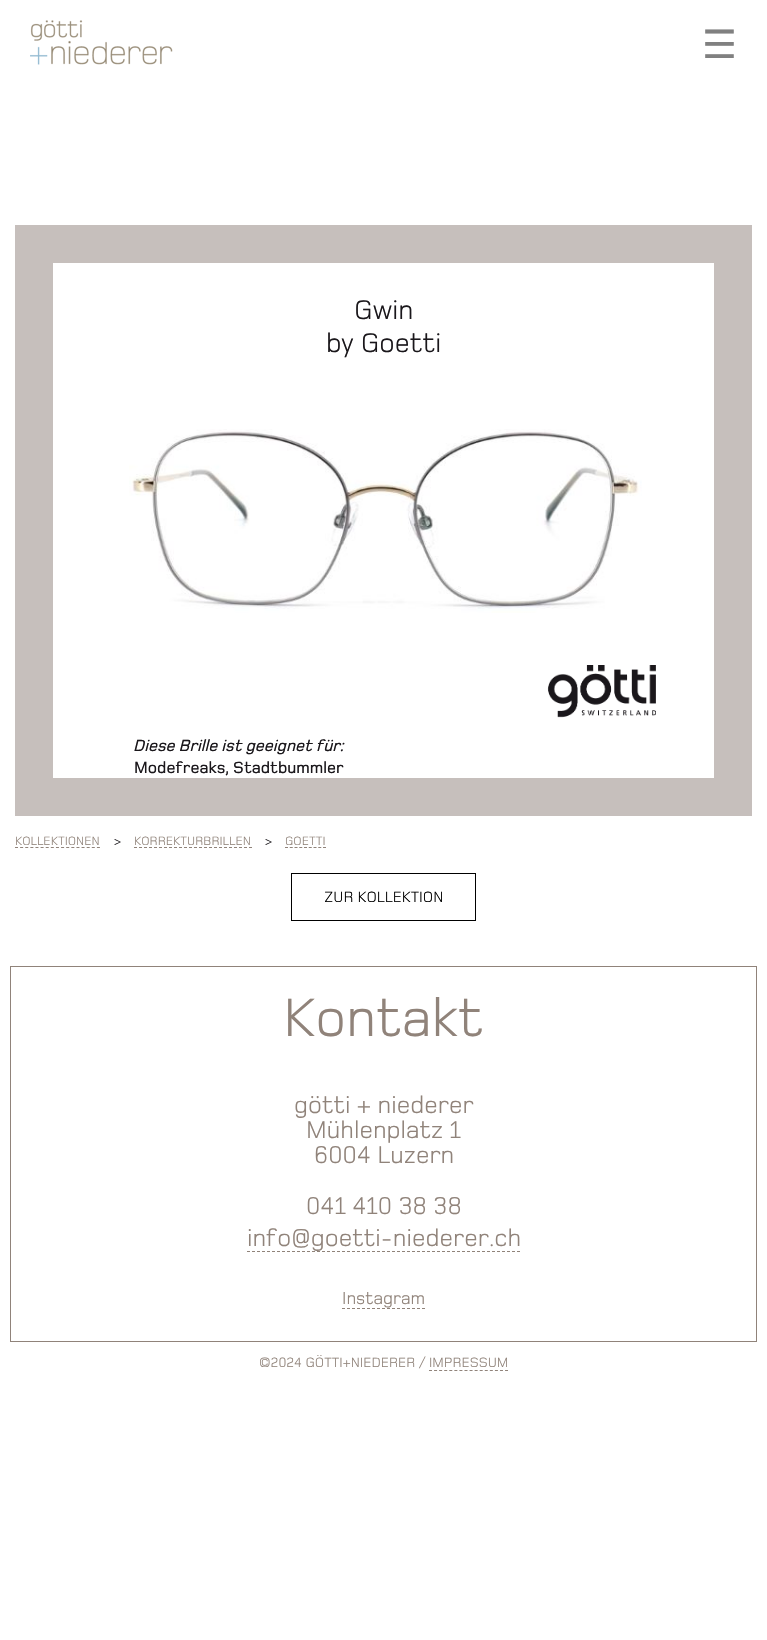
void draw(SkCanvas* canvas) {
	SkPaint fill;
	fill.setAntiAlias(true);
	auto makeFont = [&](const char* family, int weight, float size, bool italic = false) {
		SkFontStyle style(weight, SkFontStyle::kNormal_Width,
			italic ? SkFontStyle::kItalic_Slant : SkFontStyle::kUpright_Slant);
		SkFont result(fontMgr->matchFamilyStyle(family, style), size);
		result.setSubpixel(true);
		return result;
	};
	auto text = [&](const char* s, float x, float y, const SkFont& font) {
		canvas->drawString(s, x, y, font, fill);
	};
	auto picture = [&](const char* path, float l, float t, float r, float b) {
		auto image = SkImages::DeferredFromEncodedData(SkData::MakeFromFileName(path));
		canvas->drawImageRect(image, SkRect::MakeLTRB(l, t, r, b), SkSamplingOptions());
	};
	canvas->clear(0xFFFFFFFF);
	picture("image0.png", 30, 20, 173, 65);
	fill.setStyle(SkPaint::kStroke_Style);
	fill.setStrokeWidth(38);
	fill.setColor(0xFFC6BFBC);
	canvas->drawRect(SkRect::MakeLTRB(34, 244, 733, 797), fill);
	picture("image1.png", 129, 429, 642, 613);
	picture("image2.png", 547, 665, 656, 718);
	fill.setStrokeWidth(1);
	fill.setColor(0xFF90837A);
	fill.setPathEffect(SkDashPathEffect::Make({{3, 2.12f}}, 0));
	canvas->drawPath(SkPathBuilder().moveTo(15, 847.5f).lineTo(100, 847.5f).detach(), fill);
	fill.setPathEffect(nullptr);
	fill.setPathEffect(SkDashPathEffect::Make({{3, 2}}, 0));
	canvas->drawPath(SkPathBuilder().moveTo(134, 847.5f).lineTo(252, 847.5f).detach(), fill);
	fill.setPathEffect(nullptr);
	fill.setPathEffect(SkDashPathEffect::Make({{3, 1.75f}}, 0));
	canvas->drawPath(SkPathBuilder().moveTo(285, 847.5f).lineTo(326, 847.5f).detach(), fill);
	fill.setPathEffect(nullptr);
	fill.setColor(0xFF000000);
	canvas->drawRect(SkRect::MakeLTRB(291.5f, 873.5f, 475.5f, 920.5f), fill);
	fill.setColor(0xFF90837A);
	canvas->drawRect(SkRect::MakeLTRB(10.5f, 966.5f, 756.5f, 1341.5f), fill);
	fill.setPathEffect(SkDashPathEffect::Make({{3, 2}}, 0));
	canvas->drawPath(SkPathBuilder().moveTo(247, 1251.5f).lineTo(520, 1251.5f).detach(), fill);
	fill.setPathEffect(nullptr);
	fill.setPathEffect(SkDashPathEffect::Make({{3, 2}}, 0));
	canvas->drawPath(SkPathBuilder().moveTo(342, 1308.5f).lineTo(425, 1308.5f).detach(), fill);
	fill.setPathEffect(nullptr);
	fill.setPathEffect(SkDashPathEffect::Make({{3, 2.07f}}, 0));
	canvas->drawPath(SkPathBuilder().moveTo(429, 1370.5f).lineTo(508, 1370.5f).detach(), fill);
	fill.setPathEffect(nullptr);
	auto font1 = makeFont("DejaVu Sans", 400, 39);
	fill.setStyle(SkPaint::kFill_Style);
	fill.setColor(0xFF808080);
	text("☰", 702, 58, font1);
	auto font2 = makeFont("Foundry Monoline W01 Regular", 400, 28);
	fill.setColor(0xFF1A171B);
	text("Gwin", 354, 319, font2);
	text("by Goetti", 326, 352, font2);
	auto font3 = makeFont("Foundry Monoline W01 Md", 500, 16.75f, true);
	text("Diese Brille ist geeignet für:", 133, 751, font3);
	auto font4 = makeFont("Foundry Monoline W01 Md", 500, 16.75f);
	text("Modefreaks, Stadtbummler", 134, 773, font4);
	auto font5 = makeFont("Foundry Monoline W01 Regular", 400, 12.5f);
	fill.setColor(0xFF90837A);
	text("KOLLEKTIONEN", 15, 845, font5);
	fill.setColor(0xFF1A171B);
	text(">", 114, 845, font5);
	fill.setColor(0xFF90837A);
	text("KORREKTURBRILLEN", 134, 845, font5);
	fill.setColor(0xFF1A171B);
	text(">", 265, 845, font5);
	fill.setColor(0xFF90837A);
	text("GOETTI", 285, 845, font5);
	auto font6 = makeFont("Foundry Monoline W01 Regular", 400, 15.5f);
	fill.setColor(0xFF000000);
	text("ZUR KOLLEKTION", 324, 902, font6);
	auto font7 = makeFont("Foundry Monoline W01 Regular", 400, 56);
	fill.setColor(0xFF90837A);
	text("Kontakt", 283, 1036, font7);
	auto font8 = makeFont("Foundry Monoline W01 Regular", 400, 25.25f);
	text("götti + niederer", 294, 1113, font8);
	text("Mühlenplatz 1", 306, 1138, font8);
	text("6004 Luzern", 314, 1163, font8);
	text("041 410 38 38", 306, 1214, font8);
	text("info@goetti-niederer.ch", 247, 1246, font8);
	auto font9 = makeFont("Foundry Monoline W01 Regular", 400, 18);
	text("Instagram", 342, 1304, font9);
	auto font10 = makeFont("Foundry Monoline W01 Regular", 400, 14);
	text("©2024 GÖTTI+NIEDERER / IMPRESSUM", 259, 1367, font10);
}
